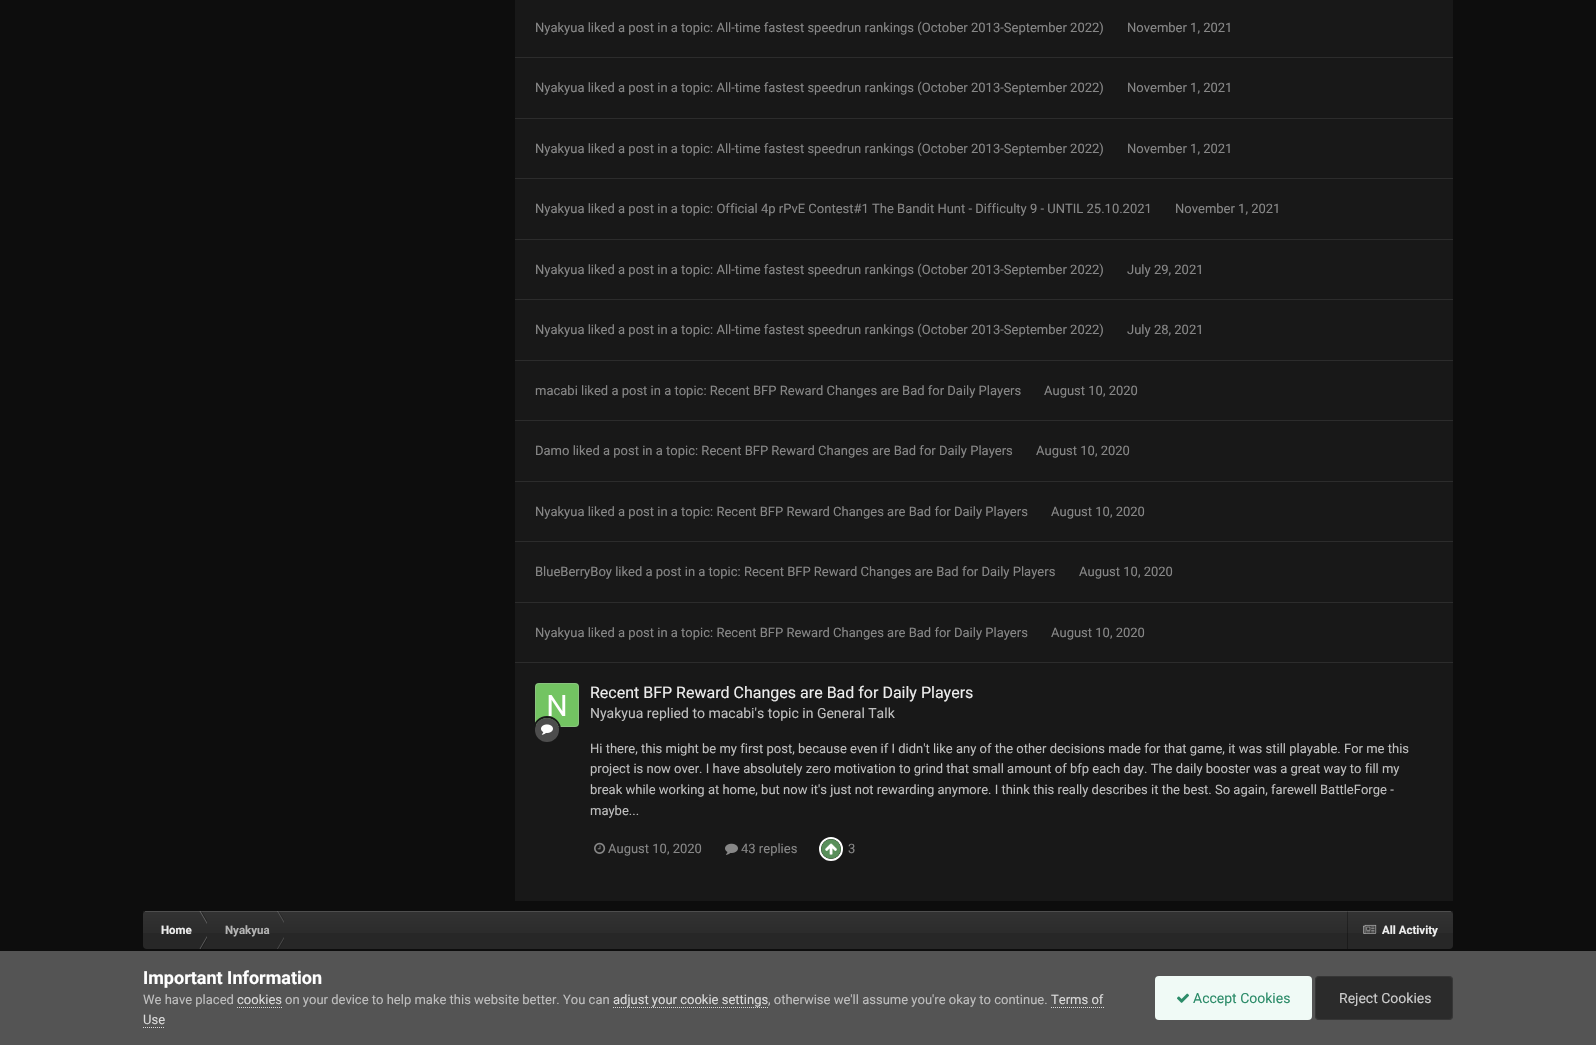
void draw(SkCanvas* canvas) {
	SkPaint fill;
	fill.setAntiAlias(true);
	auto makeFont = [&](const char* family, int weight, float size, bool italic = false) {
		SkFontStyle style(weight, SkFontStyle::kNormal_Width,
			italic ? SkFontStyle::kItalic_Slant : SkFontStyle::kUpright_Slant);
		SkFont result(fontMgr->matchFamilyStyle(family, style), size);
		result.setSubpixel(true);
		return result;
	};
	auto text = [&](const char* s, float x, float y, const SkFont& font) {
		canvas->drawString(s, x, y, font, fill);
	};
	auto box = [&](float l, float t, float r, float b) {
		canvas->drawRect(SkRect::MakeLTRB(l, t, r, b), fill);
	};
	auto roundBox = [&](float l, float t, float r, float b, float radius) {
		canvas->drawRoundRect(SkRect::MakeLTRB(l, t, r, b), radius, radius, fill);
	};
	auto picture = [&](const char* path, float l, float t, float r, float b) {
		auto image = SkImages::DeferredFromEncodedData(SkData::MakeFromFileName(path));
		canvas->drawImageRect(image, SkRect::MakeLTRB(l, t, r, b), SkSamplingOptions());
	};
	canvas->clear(0xFF0D0D0D);
	fill.setColor(0xFF181818);
	box(515, 0, 1453, 901);
	fill.setColor(0xFF2C2C2C);
	box(515, 57, 1453, 58);
	box(515, 118, 1453, 119);
	box(515, 178, 1453, 179);
	box(515, 239, 1453, 240);
	box(515, 299, 1453, 300);
	box(515, 360, 1453, 361);
	box(515, 420, 1453, 421);
	box(515, 481, 1453, 482);
	box(515, 541, 1453, 542);
	box(515, 602, 1453, 603);
	box(515, 662, 1453, 663);
	picture("image0.png", 535, 683, 579, 727);
	fill.setStyle(SkPaint::kStroke_Style);
	fill.setStrokeWidth(1);
	fill.setColor(0x4DBFBFBF);
	canvas->drawRoundRect(SkRect::MakeLTRB(535.5f, 683.5f, 578.5f, 726.5f), 3.5f, 3.5f, fill);
	fill.setStrokeWidth(2);
	fill.setColor(0xFF181818);
	canvas->drawCircle(547, 730, 13, fill);
	fill.setStyle(SkPaint::kFill_Style);
	fill.setColor(0xFF4D4D4D);
	canvas->drawCircle(547, 730, 12, fill);
	picture("image1.png", 541, 724, 553, 735);
	picture("image2.png", 594, 842, 606, 854);
	picture("image3.png", 725, 843, 738, 855);
	fill.setStyle(SkPaint::kStroke_Style);
	fill.setColor(0xFFFFFFFF);
	canvas->drawCircle(831, 849, 11, fill);
	picture("image4.png", 821, 839, 841, 859);
	fill.setStyle(SkPaint::kFill_Style);
	fill.setColor(0xFF272727);
	roundBox(143, 911, 1453, 949, 4);
	{
		const SkColor colors[] = {0x0DFFFFFF, 0x00FFFFFF};
		const float stops[] = {0, 1};
		const SkPoint ends[] = {{798, 911}, {798, 949}};
		fill.setShader(SkGradientShader::MakeLinear(ends, colors, stops, 2, SkTileMode::kClamp));
		fill.setAlpha(255);
	}
	box(143, 911, 1453, 933);
	canvas->save();
	canvas->clipRect(SkRect::MakeLTRB(143, 911, 207, 949));
	fill.setShader(nullptr);
	fill.setColor(0x40FFFFFF);
	canvas->drawPath(SkPathBuilder().moveTo(199.5f, 911).lineTo(200.5f, 911).lineTo(211.5f, 930).lineTo(210.5f, 930).close().detach(), fill);
	fill.setColor(0x4D000000);
	canvas->drawPath(SkPathBuilder().moveTo(200.5f, 911).lineTo(201.5f, 911).lineTo(212.5f, 930).lineTo(211.5f, 930).close().detach(), fill);
	canvas->restore();
	canvas->save();
	canvas->clipRect(SkRect::MakeLTRB(207, 911, 284, 949));
	fill.setColor(0x2BFFFFFF);
	canvas->drawPath(SkPathBuilder().moveTo(277, 911).lineTo(278, 911).lineTo(289, 930).lineTo(288, 930).close().detach(), fill);
	fill.setColor(0x36000000);
	canvas->drawPath(SkPathBuilder().moveTo(278, 911).lineTo(279, 911).lineTo(290, 930).lineTo(289, 930).close().detach(), fill);
	canvas->restore();
	fill.setColor(0x4D000000);
	box(1347, 911, 1348, 949);
	fill.setColor(0x33BFBFBF);
	box(145, 911, 1451, 912);
	canvas->save();
	canvas->clipRect(SkRect::MakeLTRB(143, 911, 207, 949));
	fill.setColor(0x40FFFFFF);
	canvas->drawPath(SkPathBuilder().moveTo(199.5f, 949).lineTo(200.5f, 949).lineTo(211.5f, 930).lineTo(210.5f, 930).close().detach(), fill);
	fill.setColor(0x4D000000);
	canvas->drawPath(SkPathBuilder().moveTo(200.5f, 949).lineTo(201.5f, 949).lineTo(212.5f, 930).lineTo(211.5f, 930).close().detach(), fill);
	canvas->restore();
	canvas->save();
	canvas->clipRect(SkRect::MakeLTRB(207, 911, 284, 949));
	fill.setColor(0x2BFFFFFF);
	canvas->drawPath(SkPathBuilder().moveTo(277, 949).lineTo(278, 949).lineTo(289, 930).lineTo(288, 930).close().detach(), fill);
	fill.setColor(0x36000000);
	canvas->drawPath(SkPathBuilder().moveTo(278, 949).lineTo(279, 949).lineTo(290, 930).lineTo(289, 930).close().detach(), fill);
	canvas->restore();
	picture("image5.png", 1363, 924, 1377, 934);
	fill.setColor(0xFF545454);
	box(0, 951, 1596, 1045);
	fill.setStyle(SkPaint::kStroke_Style);
	fill.setStrokeWidth(1);
	fill.setColor(0xFFDADADA);
	fill.setPathEffect(SkDashPathEffect::Make({{1, 1}}, 0));
	canvas->drawPath(SkPathBuilder().moveTo(237, 1007.5f).lineTo(282, 1007.5f).detach(), fill);
	fill.setPathEffect(nullptr);
	fill.setPathEffect(SkDashPathEffect::Make({{1, 1}}, 0));
	canvas->drawPath(SkPathBuilder().moveTo(613, 1007.5f).lineTo(768, 1007.5f).detach(), fill);
	fill.setPathEffect(nullptr);
	fill.setPathEffect(SkDashPathEffect::Make({{1, 1}}, 0));
	canvas->drawPath(SkPathBuilder().moveTo(1051, 1007.5f).lineTo(1104, 1007.5f).detach(), fill);
	fill.setPathEffect(nullptr);
	fill.setPathEffect(SkDashPathEffect::Make({{1, 1}}, 0));
	canvas->drawPath(SkPathBuilder().moveTo(143, 1027.5f).lineTo(165, 1027.5f).detach(), fill);
	fill.setPathEffect(nullptr);
	fill.setStyle(SkPaint::kFill_Style);
	fill.setColor(0xFFF0FAF6);
	roundBox(1155, 976, 1312, 1020, 4);
	picture("image6.png", 1177, 993, 1189, 1003);
	fill.setColor(0xFF2B2B2B);
	roundBox(1315, 976, 1453, 1020, 4);
	fill.setStyle(SkPaint::kStroke_Style);
	fill.setColor(0x12CCCCCC);
	canvas->drawRoundRect(SkRect::MakeLTRB(1315.5f, 976.5f, 1452.5f, 1019.5f), 3.5f, 3.5f, fill);
	auto font1 = makeFont("Roboto", 400, 13);
	fill.setStyle(SkPaint::kFill_Style);
	fill.setColor(0xFF878787);
	text("Nyakyua liked a post in a topic: All-time fastest speedrun rankings (October 2013-September 2022)", 535, 32, font1);
	text("November 1, 2021", 1127, 32, font1);
	text("Nyakyua liked a post in a topic: All-time fastest speedrun rankings (October 2013-September 2022)", 535, 92, font1);
	text("November 1, 2021", 1127, 92, font1);
	text("Nyakyua liked a post in a topic: All-time fastest speedrun rankings (October 2013-September 2022)", 535, 153, font1);
	text("November 1, 2021", 1127, 153, font1);
	text("Nyakyua liked a post in a topic: Official 4p rPvE Contest#1 The Bandit Hunt - Difficulty 9 - UNTIL 25.10.2021", 535, 213, font1);
	text("November 1, 2021", 1175, 213, font1);
	text("Nyakyua liked a post in a topic: All-time fastest speedrun rankings (October 2013-September 2022)", 535, 274, font1);
	text("July 29, 2021", 1127, 274, font1);
	text("Nyakyua liked a post in a topic: All-time fastest speedrun rankings (October 2013-September 2022)", 535, 334, font1);
	text("July 28, 2021", 1127, 334, font1);
	text("macabi liked a post in a topic: Recent BFP Reward Changes are Bad for Daily Players", 535, 395, font1);
	text("August 10, 2020", 1044, 395, font1);
	text("Damo liked a post in a topic: Recent BFP Reward Changes are Bad for Daily Players", 535, 455, font1);
	text("August 10, 2020", 1036, 455, font1);
	text("Nyakyua liked a post in a topic: Recent BFP Reward Changes are Bad for Daily Players", 535, 516, font1);
	text("August 10, 2020", 1051, 516, font1);
	text("BlueBerryBoy liked a post in a topic: Recent BFP Reward Changes are Bad for Daily Players", 535, 576, font1);
	text("August 10, 2020", 1079, 576, font1);
	text("Nyakyua liked a post in a topic: Recent BFP Reward Changes are Bad for Daily Players", 535, 637, font1);
	text("August 10, 2020", 1051, 637, font1);
	auto font2 = makeFont("Roboto", 400, 16);
	fill.setColor(0xFFEDEDED);
	text("Recent BFP Reward Changes are Bad for Daily Players", 590, 698, font2);
	auto font3 = makeFont("Roboto", 400, 14);
	fill.setColor(0xFFBFBFBF);
	text("Nyakyua replied to macabi's topic in General Talk", 590, 718, font3);
	text("Hi there, this might be my first post, because even if I didn't like any of the other decisions made for that game, it was still playable. For me this", 590, 753, font1);
	text("project is now over. I have absolutely zero motivation to grind that small amount of bfp each day. The daily booster was a great way to fill my", 590, 773, font1);
	text("break while working at home, but now it's just not rewarding anymore. I think this really describes it the best. So again, farewell BattleForge -", 590, 794, font1);
	text("maybe...", 590, 815, font1);
	fill.setColor(0xFF878787);
	text("August 10, 2020", 608, 853, font1);
	text("43 replies", 741, 853, font1);
	text("3", 848, 853, font1);
	auto font4 = makeFont("Roboto", 700, 11.5f);
	fill.setColor(0xFFEDEDED);
	text("Home", 161, 934, font4);
	fill.setColor(0xFFB3B3B3);
	text("Nyakyua", 225, 934, font4);
	fill.setColor(0xFFEDEDED);
	text("All Activity", 1382, 934, font4);
	auto font5 = makeFont("Roboto", 700, 18);
	fill.setColor(0xFFFFFFFF);
	text("Important Information", 143, 984, font5);
	fill.setColor(0xFFBFBFBF);
	text("We have placed", 143, 1004, font1);
	fill.setColor(0xFFDADADA);
	text("cookies", 237, 1004, font1);
	fill.setColor(0xFFBFBFBF);
	text("on your device to help make this website better. You can", 285, 1004, font1);
	fill.setColor(0xFFDADADA);
	text("adjust your cookie settings", 613, 1004, font1);
	fill.setColor(0xFFBFBFBF);
	text(", otherwise we'll assume you're okay to continue.", 768, 1004, font1);
	fill.setColor(0xFFDADADA);
	text("Terms of", 1051, 1004, font1);
	text("Use", 143, 1024, font1);
	fill.setColor(0xFF2C8C69);
	text("Accept Cookies", 1193, 1003, font3);
	fill.setColor(0xFFCCCCCC);
	text("Reject Cookies", 1339, 1003, font3);
}
